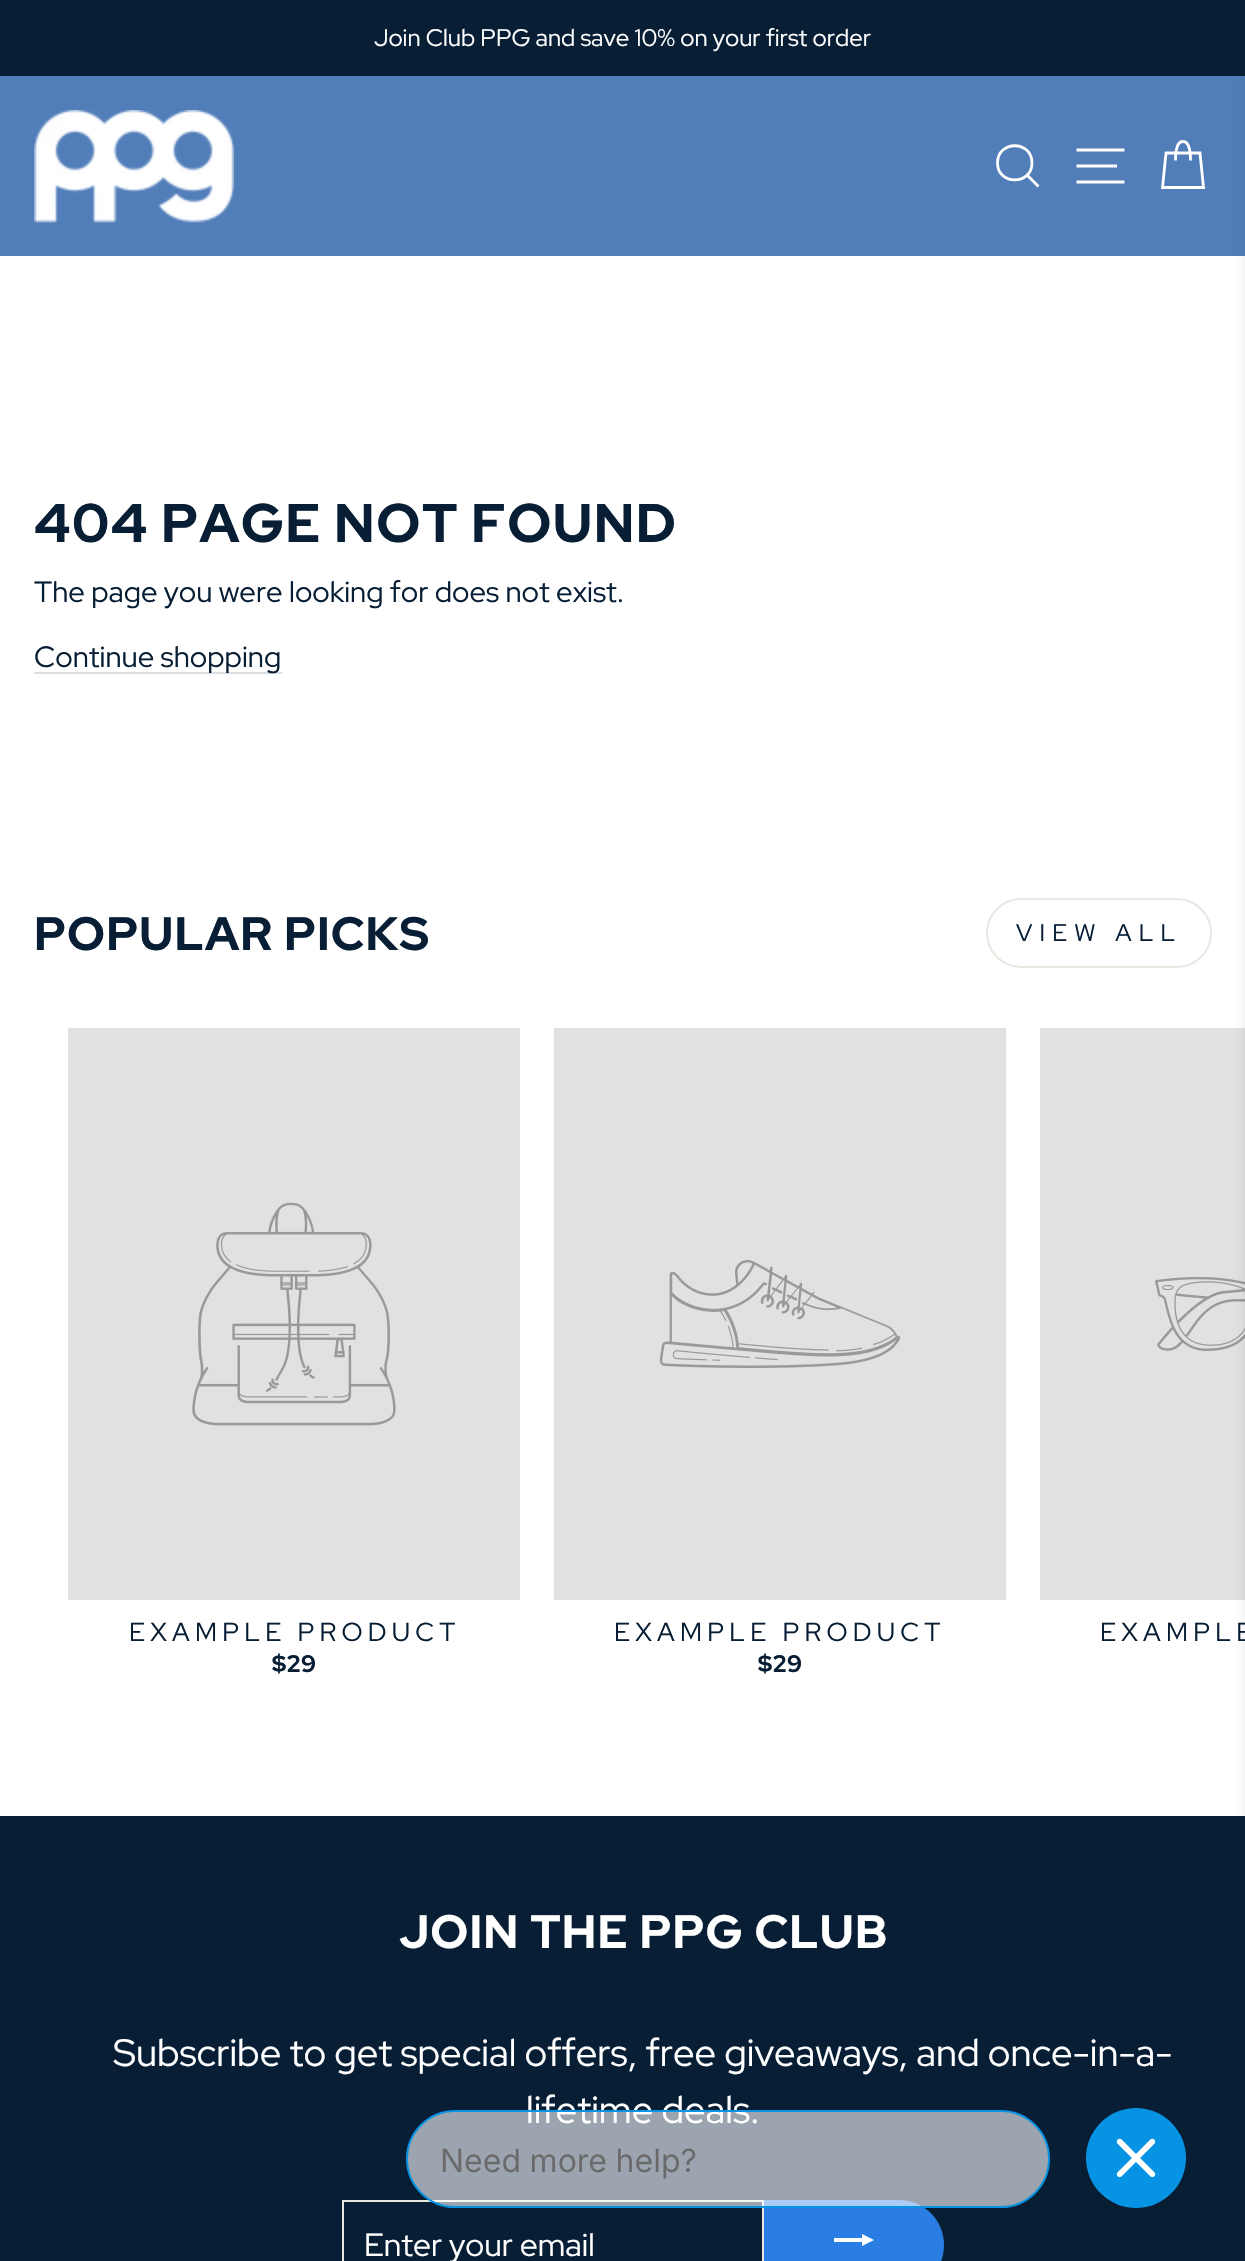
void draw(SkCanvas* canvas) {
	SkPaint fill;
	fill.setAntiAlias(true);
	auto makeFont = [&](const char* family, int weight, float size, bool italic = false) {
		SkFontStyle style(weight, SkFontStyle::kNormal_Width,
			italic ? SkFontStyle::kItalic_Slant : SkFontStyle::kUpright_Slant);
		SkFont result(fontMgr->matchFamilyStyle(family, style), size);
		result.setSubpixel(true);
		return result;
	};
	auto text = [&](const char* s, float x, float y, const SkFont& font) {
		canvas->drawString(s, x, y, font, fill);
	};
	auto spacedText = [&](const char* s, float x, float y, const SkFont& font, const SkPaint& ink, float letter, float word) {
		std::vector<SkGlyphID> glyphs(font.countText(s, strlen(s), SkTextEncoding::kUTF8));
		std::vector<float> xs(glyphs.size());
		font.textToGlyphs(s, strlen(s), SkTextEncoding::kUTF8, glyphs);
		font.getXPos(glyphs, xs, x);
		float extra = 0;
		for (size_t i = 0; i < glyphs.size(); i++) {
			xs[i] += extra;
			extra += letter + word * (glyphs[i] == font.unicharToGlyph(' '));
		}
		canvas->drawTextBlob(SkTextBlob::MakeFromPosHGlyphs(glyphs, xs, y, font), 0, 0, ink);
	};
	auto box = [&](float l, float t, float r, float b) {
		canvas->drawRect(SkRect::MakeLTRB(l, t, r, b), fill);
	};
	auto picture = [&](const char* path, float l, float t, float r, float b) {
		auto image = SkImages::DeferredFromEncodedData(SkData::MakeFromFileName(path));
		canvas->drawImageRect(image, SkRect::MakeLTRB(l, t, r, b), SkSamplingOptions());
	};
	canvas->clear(0xFFFFFFFF);
	fill.setColor(0xFF071E35);
	box(0, 0, 1245, 76);
	fill.setColor(0xFF517DB9);
	box(0, 76, 1245, 256);
	fill.setColor(0xFFE1E1E1);
	box(1040, 1028, 1245, 1600);
	picture("image3.png", 1155, 1276, 1245, 1351);
	fill.setColor(0xFF071E35);
	box(0, 1816, 1245, 2261);
	fill.setColor(0x1A000000);
	fill.setMaskFilter(SkMaskFilter::MakeBlur(kNormal_SkBlurStyle, 6));
	canvas->drawRect(SkRect::MakeLTRB(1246, 8, 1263, 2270), fill);
	fill.setMaskFilter(nullptr);
	picture("image0.png", 34, 110, 234, 223);
	fill.setStyle(SkPaint::kStroke_Style);
	fill.setStrokeWidth(2.8f);
	fill.setColor(0xFFFFFFFF);
	canvas->drawPath(SkPathBuilder().moveTo(1032, 163).cubicTo(1032, 185.5f, 997.5f, 185.5f, 997.5f, 163).cubicTo(997.5f, 140, 1032, 140, 1032, 163).close().moveTo(1038.5f, 186.5f).lineTo(1027.5f, 175.5f).detach(), fill);
	canvas->drawPath(SkPathBuilder().moveTo(1076.5f, 150).lineTo(1124.5f, 150).moveTo(1076.5f, 166).lineTo(1117, 166).moveTo(1076.5f, 182).lineTo(1124.5f, 182).detach(), fill);
	canvas->drawPath(SkPathBuilder().moveTo(1175.5f, 160.5f).cubicTo(1175.5f, 145.5f, 1179, 141.5f, 1183, 141.5f).cubicTo(1187, 141.5f, 1190.5f, 145.5f, 1190.5f, 160.5f).moveTo(1166, 153).lineTo(1200, 153).lineTo(1203.5f, 187.5f).lineTo(1162.5f, 187.5f).close().detach(), fill);
	fill.setStyle(SkPaint::kFill_Style);
	fill.setColor(0xFFDADDE1);
	box(34, 672, 282, 674);
	fill.setStyle(SkPaint::kStroke_Style);
	fill.setStrokeWidth(2);
	fill.setColor(0xFFE8E8E1);
	canvas->drawRoundRect(SkRect::MakeLTRB(987, 899, 1211, 967), 34, 34, fill);
	fill.setStyle(SkPaint::kFill_Style);
	fill.setColor(0xFFE1E1E1);
	box(68, 1028, 520, 1600);
	picture("image1.png", 192, 1202, 396, 1426);
	box(554, 1028, 1006, 1600);
	picture("image2.png", 659, 1260, 901, 1368);
	fill.setStyle(SkPaint::kStroke_Style);
	fill.setColor(0xFFE8E8E1);
	canvas->drawRect(SkRect::MakeLTRB(343, 2201, 763, 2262), fill);
	fill.setStyle(SkPaint::kFill_Style);
	fill.setColor(0xFF2A7DE2);
	canvas->drawPath(SkPathBuilder().moveTo(764, 2200).lineTo(899, 2200).cubicTo(924, 2200, 944, 2220, 944, 2245).cubicTo(944, 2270, 924, 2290, 899, 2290).lineTo(764, 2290).close().detach(), fill);
	fill.setColor(0xFFFFFFFF);
	canvas->drawPath(SkPathBuilder().moveTo(834, 2242).lineTo(834, 2238).lineTo(862, 2238).lineTo(862, 2234).lineTo(874, 2240).lineTo(862, 2246).lineTo(862, 2242).close().detach(), fill);
	auto font1 = makeFont("Red Hat Display", 400, 24);
	text("Join Club PPG and save 10% on your first order", 374, 46, font1);
	auto font2 = makeFont("Red Hat Display", 800, 54.4f);
	fill.setColor(0xFF071E35);
	spacedText("404 PAGE NOT FOUND", 34, 542, font2, fill, 1.4f, 0);
	auto font3 = makeFont("Red Hat Display", 400, 29.4f);
	text("The page you were looking for does not exist.", 34, 602, font3);
	text("Continue shopping", 34, 667, font3);
	auto font4 = makeFont("Red Hat Display", 800, 46.75f);
	spacedText("POPULAR PICKS", 34, 950, font4, fill, 1.2f, 0);
	spacedText("VIEW ALL", 1016, 941, font1, fill, 7.25f, 0);
	auto font5 = makeFont("Red Hat Display", 400, 26);
	spacedText("EXAMPLE PRODUCT", 129, 1641, font5, fill, 5.25f, 0);
	auto font6 = makeFont("Red Hat Display", 800, 24);
	text("$29", 272, 1672, font6);
	spacedText("EXAMPLE PRODUCT", 614, 1641, font5, fill, 5.25f, 0);
	text("$29", 758, 1672, font6);
	spacedText("EXAMPLE", 1100, 1641, font5, fill, 5.25f, 0);
	fill.setColor(0xFFFFFFFF);
	spacedText("JOIN THE PPG CLUB", 399, 1948, font4, fill, 1.2f, 0);
	auto font7 = makeFont("Red Hat Display", 400, 38.25f);
	text("Subscribe to get special offers, free giveaways, and once-in-a-", 113, 2066, font7);
	text("lifetime deals.", 526, 2123, font7);
	auto font8 = makeFont("Red Hat Display", 400, 32);
	text("Enter your email", 364, 2256, font8);
	picture("image4.png", 406, 2108, 1186, 2209);
}
